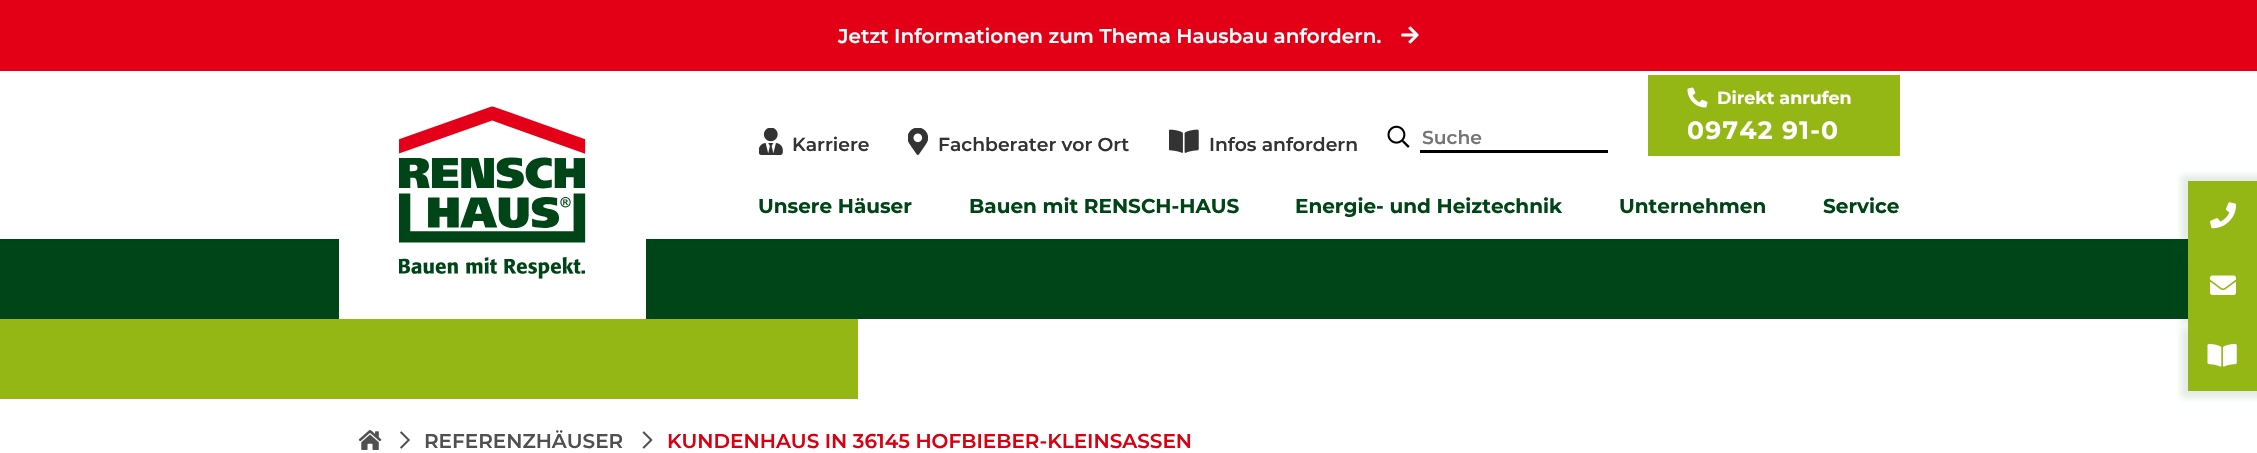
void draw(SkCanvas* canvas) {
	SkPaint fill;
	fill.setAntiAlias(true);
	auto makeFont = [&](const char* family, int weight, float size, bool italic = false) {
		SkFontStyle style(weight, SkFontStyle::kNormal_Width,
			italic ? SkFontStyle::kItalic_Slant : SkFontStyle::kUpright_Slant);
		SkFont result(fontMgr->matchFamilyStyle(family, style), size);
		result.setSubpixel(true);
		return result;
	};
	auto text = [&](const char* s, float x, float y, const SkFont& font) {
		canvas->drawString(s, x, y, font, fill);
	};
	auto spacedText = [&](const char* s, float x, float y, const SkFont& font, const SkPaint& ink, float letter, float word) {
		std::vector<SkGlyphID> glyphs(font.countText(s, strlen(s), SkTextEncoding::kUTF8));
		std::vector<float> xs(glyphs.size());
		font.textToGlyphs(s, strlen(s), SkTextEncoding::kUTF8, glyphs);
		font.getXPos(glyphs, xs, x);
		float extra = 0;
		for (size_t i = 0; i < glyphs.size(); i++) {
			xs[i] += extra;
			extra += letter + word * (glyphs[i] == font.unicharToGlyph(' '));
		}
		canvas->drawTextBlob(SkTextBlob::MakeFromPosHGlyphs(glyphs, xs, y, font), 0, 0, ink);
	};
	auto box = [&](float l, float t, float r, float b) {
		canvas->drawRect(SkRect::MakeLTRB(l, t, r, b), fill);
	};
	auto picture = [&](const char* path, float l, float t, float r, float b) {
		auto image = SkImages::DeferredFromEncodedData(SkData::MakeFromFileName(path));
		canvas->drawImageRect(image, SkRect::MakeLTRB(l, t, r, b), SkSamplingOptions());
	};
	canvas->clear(0xFFFFFFFF);
	fill.setColor(0xFFE30017);
	box(0, 0, 2257, 71);
	picture("image0.png", 1401, 26, 1419, 44);
	fill.setColor(0xFF004517);
	box(0, 239, 2188, 319);
	fill.setColor(0xFFFFFFFF);
	box(339, 239, 646, 319);
	picture("image1.png", 399, 106, 586, 279);
	picture("image2.png", 759, 128, 783, 155);
	picture("image3.png", 908, 128, 928, 155);
	picture("image4.png", 1169, 129, 1199, 153);
	picture("image5.png", 1387, 125, 1410, 148);
	fill.setColor(0xFF000000);
	box(1420, 150, 1608, 153);
	fill.setColor(0xFF95B715);
	box(1648, 75, 1900, 156);
	picture("image6.png", 1687, 87, 1708, 108);
	fill.setColor(0x1A004517);
	fill.setMaskFilter(SkMaskFilter::MakeBlur(kNormal_SkBlurStyle, 3));
	canvas->drawRect(SkRect::MakeLTRB(2181, 175, 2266, 245), fill);
	fill.setMaskFilter(nullptr);
	fill.setColor(0xFF95B715);
	box(2188, 181, 2257, 251);
	picture("image7.png", 2210, 202, 2236, 229);
	fill.setColor(0x1A004517);
	fill.setMaskFilter(SkMaskFilter::MakeBlur(kNormal_SkBlurStyle, 3));
	canvas->drawRect(SkRect::MakeLTRB(2181, 254, 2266, 324), fill);
	fill.setMaskFilter(nullptr);
	fill.setColor(0xFF95B715);
	box(2188, 251, 2257, 321);
	picture("image8.png", 2210, 275, 2236, 295);
	fill.setColor(0x1A004517);
	fill.setMaskFilter(SkMaskFilter::MakeBlur(kNormal_SkBlurStyle, 3));
	canvas->drawRect(SkRect::MakeLTRB(2181, 328, 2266, 398), fill);
	fill.setMaskFilter(nullptr);
	fill.setColor(0xFF95B715);
	box(2188, 321, 2257, 391);
	picture("image9.png", 2207, 343, 2237, 367);
	box(0, 319, 858, 399);
	picture("image10.png", 358, 430, 382, 450);
	picture("image11.png", 400, 431, 410, 449);
	picture("image12.png", 642, 431, 653, 449);
	auto font1 = makeFont("Montserrat", 100, 20);
	fill.setColor(0xFFFFFFFF);
	text("Jetzt Informationen zum Thema Hausbau anfordern.", 838, 43, font1);
	auto font2 = makeFont("Montserrat", 100, 18.75f);
	fill.setColor(0xFF333333);
	text("Karriere", 792, 151, font2);
	text("Fachberater vor Ort", 938, 151, font2);
	text("Infos anfordern", 1209, 151, font2);
	fill.setColor(0xFF757575);
	text("Suche", 1422, 144, font2);
	auto font3 = makeFont("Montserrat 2", 100, 17.5f);
	fill.setColor(0xFFFFFFFF);
	text("Direkt anrufen", 1717, 104, font3);
	auto font4 = makeFont("Montserrat 2", 100, 25);
	spacedText("09742 91-0", 1687, 139, font4, fill, 1.25f, 0);
	auto font5 = makeFont("Montserrat 2", 100, 20);
	fill.setColor(0xFF004517);
	text("Unsere Häuser", 758, 213, font5);
	text("Bauen mit RENSCH-HAUS", 969, 213, font5);
	text("Energie- und Heiztechnik", 1295, 213, font5);
	text("Unternehmen", 1619, 213, font5);
	text("Service", 1823, 213, font5);
	fill.setColor(0xFF505050);
	text("REFERENZHÄUSER", 424, 448, font1);
	fill.setColor(0xFFDA0011);
	text("KUNDENHAUS IN 36145 HOFBIEBER-KLEINSASSEN", 667, 448, font1);
}
